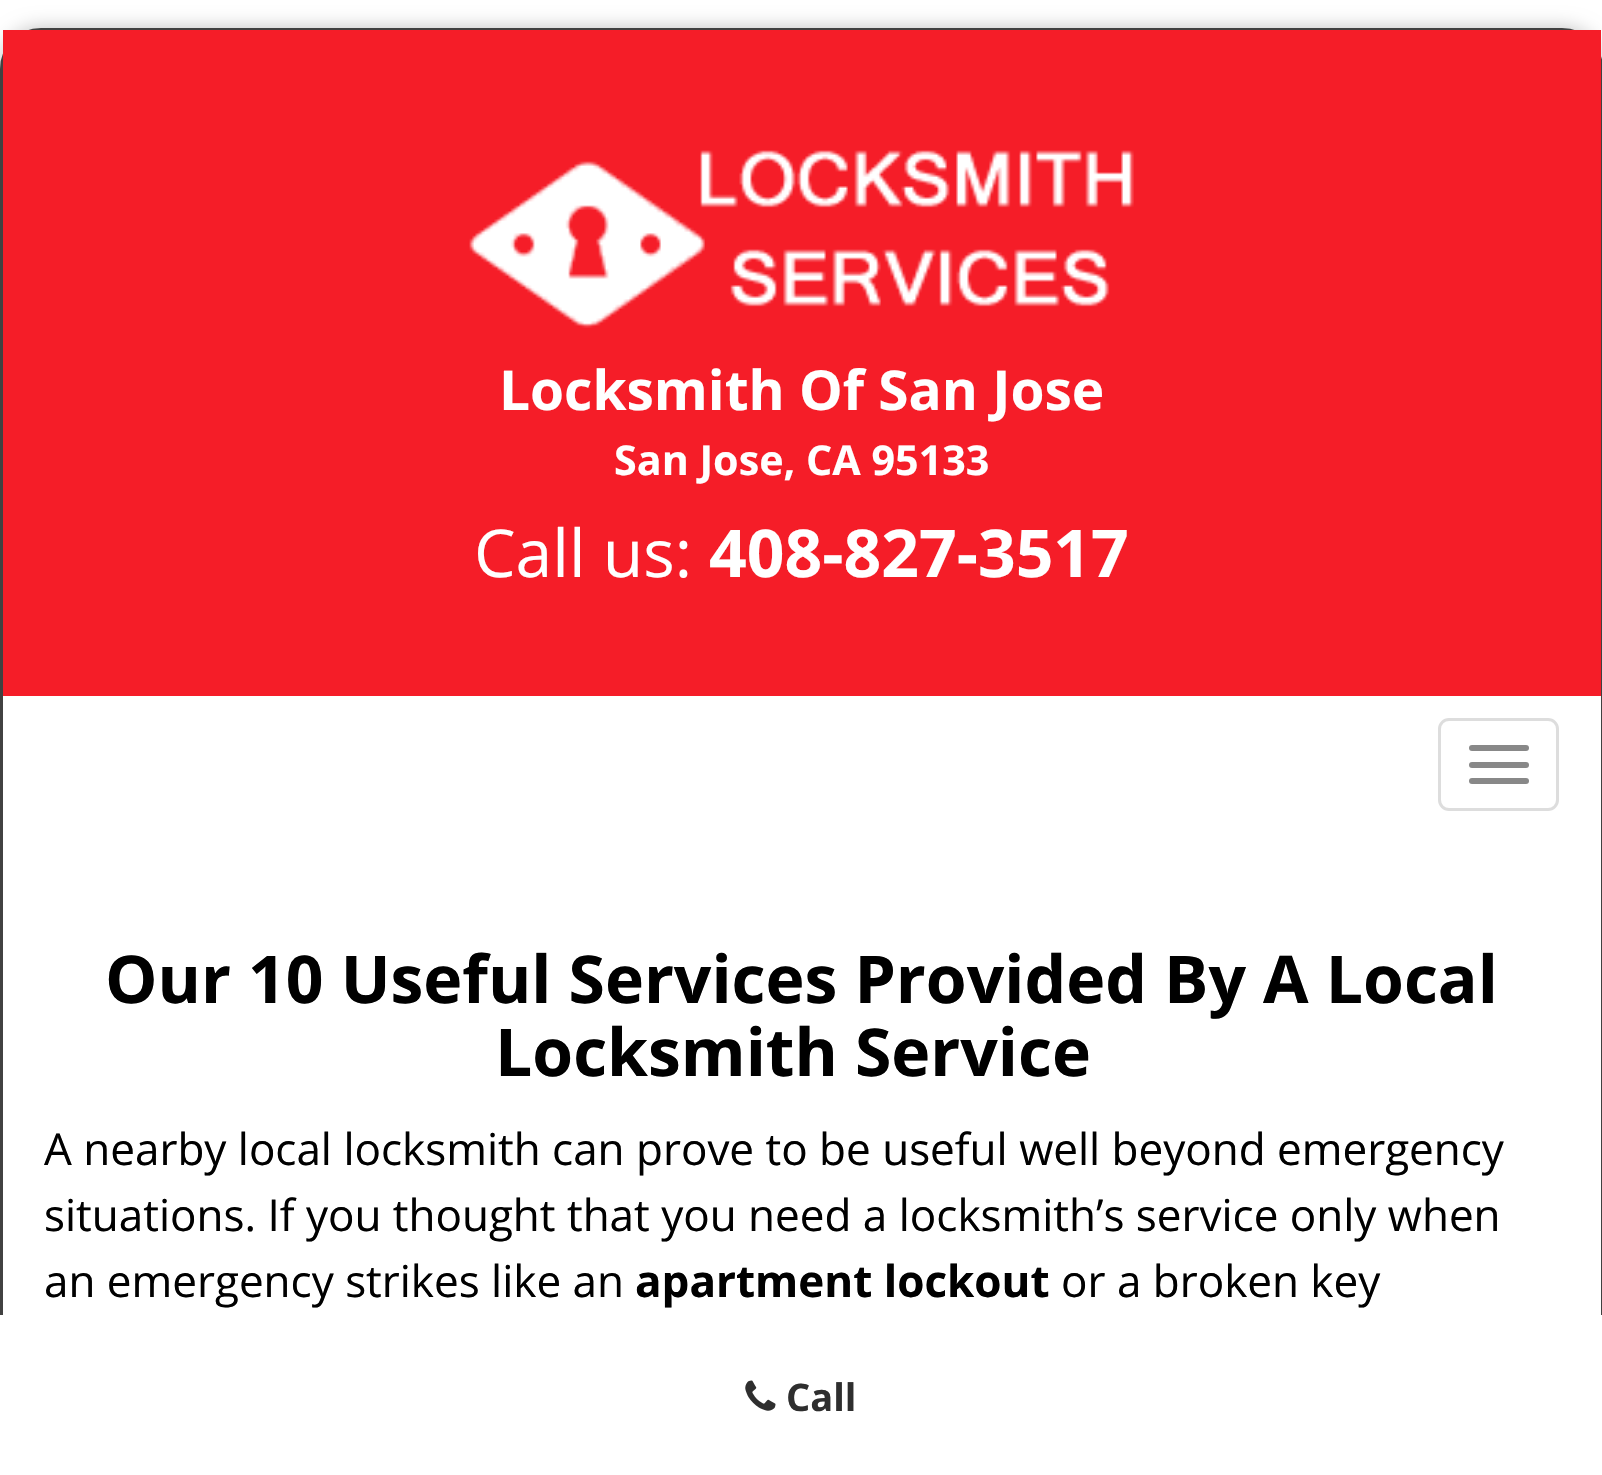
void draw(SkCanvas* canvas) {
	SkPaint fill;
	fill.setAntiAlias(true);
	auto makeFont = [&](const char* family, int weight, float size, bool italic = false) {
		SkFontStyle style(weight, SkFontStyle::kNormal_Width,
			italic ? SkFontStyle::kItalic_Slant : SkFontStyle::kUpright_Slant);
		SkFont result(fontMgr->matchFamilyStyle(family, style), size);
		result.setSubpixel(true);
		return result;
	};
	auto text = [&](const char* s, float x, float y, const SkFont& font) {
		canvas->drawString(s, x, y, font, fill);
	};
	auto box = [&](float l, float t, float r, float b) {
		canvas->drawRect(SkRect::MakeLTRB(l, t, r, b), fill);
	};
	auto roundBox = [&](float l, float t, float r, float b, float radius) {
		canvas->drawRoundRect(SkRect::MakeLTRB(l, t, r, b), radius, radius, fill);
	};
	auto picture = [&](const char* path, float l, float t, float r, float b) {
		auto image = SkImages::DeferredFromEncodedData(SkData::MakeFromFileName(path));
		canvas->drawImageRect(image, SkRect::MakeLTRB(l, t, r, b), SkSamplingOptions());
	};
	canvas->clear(0xFFFFFFFF);
	fill.setColor(0xFFBFBFBF);
	fill.setMaskFilter(SkMaskFilter::MakeBlur(kNormal_SkBlurStyle, 9.5f));
	canvas->drawRoundRect(SkRect::MakeLTRB(0, 28, 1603, 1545), 41, 41, fill);
	fill.setMaskFilter(nullptr);
	fill.setStyle(SkPaint::kStroke_Style);
	fill.setStrokeWidth(3);
	fill.setColor(0xFF414141);
	canvas->drawPath(SkPathBuilder().moveTo(41, 29.5f).lineTo(1562, 29.5f).cubicTo(1584, 29.5f, 1601.5f, 47, 1601.5f, 69).lineTo(1601.5f, 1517.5f).lineTo(1.5f, 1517.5f).lineTo(1.5f, 69).cubicTo(1.5f, 47, 19, 29.5f, 41, 29.5f).close().detach(), fill);
	fill.setStyle(SkPaint::kFill_Style);
	fill.setColor(0xFFF51D28);
	box(3, 30, 1601, 696);
	picture("image0.png", 469, 150, 1134, 328);
	fill.setColor(0xFFFFFFFF);
	box(3, 696, 1601, 1315);
	fill.setStyle(SkPaint::kStroke_Style);
	fill.setColor(0xFFDDDDDD);
	canvas->drawRoundRect(SkRect::MakeLTRB(1439.5f, 719.5f, 1557.5f, 809.5f), 9.5f, 9.5f, fill);
	fill.setStyle(SkPaint::kFill_Style);
	fill.setColor(0xFF888888);
	roundBox(1469, 745, 1529, 751, 3);
	roundBox(1469, 762, 1529, 768, 3);
	roundBox(1469, 778, 1529, 784, 3);
	fill.setColor(0xFFFFFFFF);
	box(0, 1315, 1602, 1475);
	picture("image1.png", 745, 1380, 776, 1411);
	auto font1 = makeFont("Open Sans", 700, 55);
	text("Locksmith Of San Jose", 499, 410, font1);
	auto font2 = makeFont("Open Sans", 700, 41.25f);
	text("San Jose, CA 95133", 614, 475, font2);
	auto font3 = makeFont("Open Sans", 400, 66);
	text("Call us:", 474, 577, font3);
	auto font4 = makeFont("Open Sans", 700, 66);
	text("408-827-3517", 709, 577, font4);
	fill.setColor(0xFF000000);
	text("Our 10 Useful Services Provided By A Local", 105, 1003, font4);
	text("Locksmith Service", 495, 1076, font4);
	auto font5 = makeFont("Open Sans", 400, 44);
	text("A nearby local locksmith can prove to be useful well beyond emergency", 44, 1165, font5);
	text("situations. If you thought that you need a locksmith’s service only when", 44, 1231, font5);
	text("an emergency strikes like an", 44, 1297, font5);
	auto font6 = makeFont("Open Sans", 700, 44);
	text("apartment lockout", 635, 1297, font6);
	text("or a broken key", 1061, 1297, font5);
	auto font7 = makeFont("Open Sans", 700, 38);
	fill.setColor(0xFF2E2E2E);
	text("Call", 786, 1411, font7);
}
